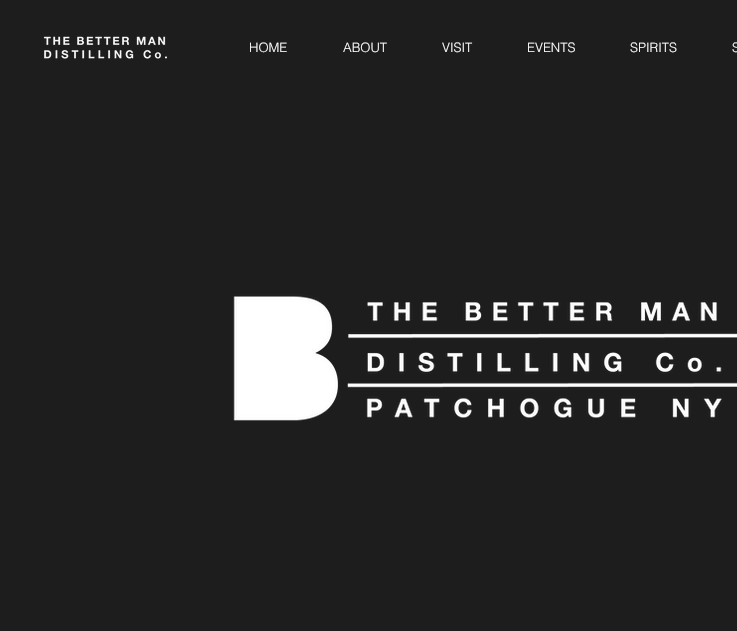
void draw(SkCanvas* canvas) {
	SkPaint fill;
	fill.setAntiAlias(true);
	auto makeFont = [&](const char* family, int weight, float size, bool italic = false) {
		SkFontStyle style(weight, SkFontStyle::kNormal_Width,
			italic ? SkFontStyle::kItalic_Slant : SkFontStyle::kUpright_Slant);
		SkFont result(fontMgr->matchFamilyStyle(family, style), size);
		result.setSubpixel(true);
		return result;
	};
	auto text = [&](const char* s, float x, float y, const SkFont& font) {
		canvas->drawString(s, x, y, font, fill);
	};
	auto picture = [&](const char* path, float l, float t, float r, float b) {
		auto image = SkImages::DeferredFromEncodedData(SkData::MakeFromFileName(path));
		canvas->drawImageRect(image, SkRect::MakeLTRB(l, t, r, b), SkSamplingOptions());
	};
	canvas->clear(0xFF1D1D1D);
	picture("image0.png", 43, 36, 168, 59);
	picture("image1.png", 233, 294, 737, 421);
	auto font1 = makeFont("helvetica", 300, 13);
	fill.setColor(0xFFFFFFFF);
	text("HOME", 249, 52, font1);
	text("ABOUT", 343, 52, font1);
	text("VISIT", 442, 52, font1);
	text("EVENTS", 527, 52, font1);
	text("SPIRITS", 630, 52, font1);
	text("S", 732, 52, font1);
}
